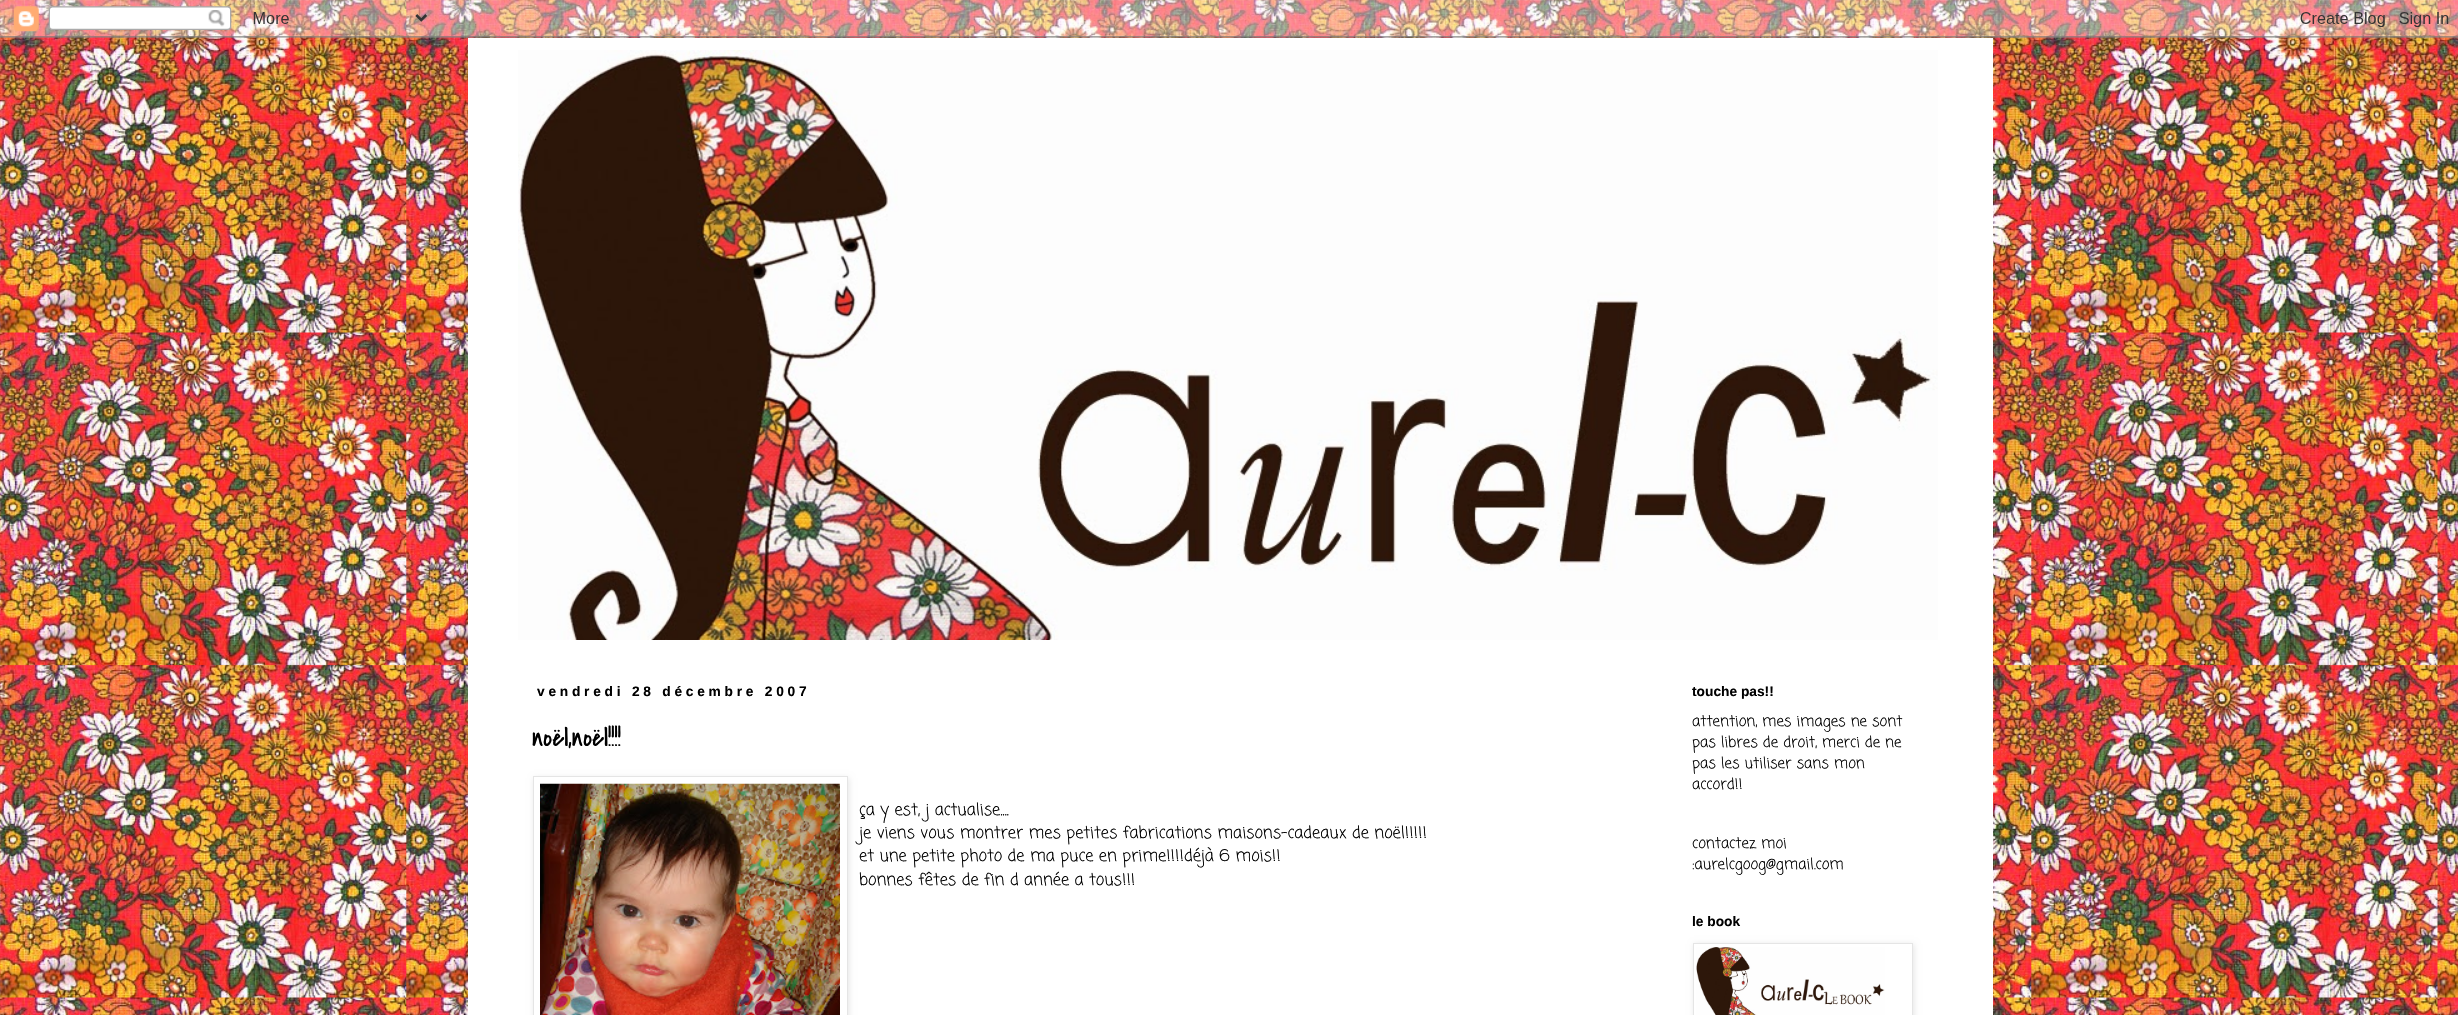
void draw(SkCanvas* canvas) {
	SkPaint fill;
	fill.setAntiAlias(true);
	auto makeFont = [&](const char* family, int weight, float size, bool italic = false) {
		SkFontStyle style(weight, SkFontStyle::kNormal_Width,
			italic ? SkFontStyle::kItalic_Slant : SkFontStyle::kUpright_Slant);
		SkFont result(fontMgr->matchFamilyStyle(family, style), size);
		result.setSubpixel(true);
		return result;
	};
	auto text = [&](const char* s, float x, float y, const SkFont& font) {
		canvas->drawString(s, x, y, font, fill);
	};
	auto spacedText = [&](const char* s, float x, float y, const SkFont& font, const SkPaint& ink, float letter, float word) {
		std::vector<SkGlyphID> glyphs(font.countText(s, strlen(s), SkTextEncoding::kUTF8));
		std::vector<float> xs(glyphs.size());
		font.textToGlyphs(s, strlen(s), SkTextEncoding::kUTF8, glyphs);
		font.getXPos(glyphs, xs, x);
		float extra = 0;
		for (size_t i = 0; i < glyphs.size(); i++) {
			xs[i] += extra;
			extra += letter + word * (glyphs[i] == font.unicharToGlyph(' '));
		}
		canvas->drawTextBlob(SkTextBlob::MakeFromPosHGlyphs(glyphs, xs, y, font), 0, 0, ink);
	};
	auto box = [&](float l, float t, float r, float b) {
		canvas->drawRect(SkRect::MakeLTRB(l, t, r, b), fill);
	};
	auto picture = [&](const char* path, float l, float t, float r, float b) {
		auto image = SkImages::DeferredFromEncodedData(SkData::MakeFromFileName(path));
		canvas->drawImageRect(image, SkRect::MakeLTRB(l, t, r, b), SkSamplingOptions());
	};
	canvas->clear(0xFFFFFFFF);
	picture("image0.png", 0, 0, 2458, 1015);
	picture("image1.png", 0, 0, 2458, 38);
	fill.setColor(0xFFFFFFFF);
	box(468, 38, 1993, 1015);
	picture("image2.png", 518, 50, 1938, 640);
	canvas->save();
	canvas->clipPath(SkPathBuilder(SkPathFillType::kEvenOdd).moveTo(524, 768).lineTo(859, 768).lineTo(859, 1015).lineTo(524, 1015).close().moveTo(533, 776).lineTo(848, 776).lineTo(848, 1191).lineTo(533, 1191).close().detach(), true);
	fill.setColor(0x1A000000);
	fill.setMaskFilter(SkMaskFilter::MakeBlur(kNormal_SkBlurStyle, 3));
	canvas->drawRect(SkRect::MakeLTRB(534, 778, 849, 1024), fill);
	fill.setMaskFilter(nullptr);
	canvas->restore();
	fill.setStyle(SkPaint::kStroke_Style);
	fill.setStrokeWidth(1);
	fill.setColor(0xFFE5E5E5);
	canvas->drawRect(SkRect::MakeLTRB(533.5f, 776.5f, 847.5f, 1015.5f), fill);
	picture("image3.png", 540, 783, 840, 1015);
	canvas->save();
	canvas->clipPath(SkPathBuilder(SkPathFillType::kEvenOdd).moveTo(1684, 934).lineTo(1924, 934).lineTo(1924, 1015).lineTo(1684, 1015).close().moveTo(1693, 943).lineTo(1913, 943).lineTo(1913, 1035).lineTo(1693, 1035).close().detach(), true);
	fill.setStyle(SkPaint::kFill_Style);
	fill.setColor(0x1A000000);
	fill.setMaskFilter(SkMaskFilter::MakeBlur(kNormal_SkBlurStyle, 3));
	canvas->drawRect(SkRect::MakeLTRB(1694, 944, 1914, 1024), fill);
	fill.setMaskFilter(nullptr);
	canvas->restore();
	fill.setStyle(SkPaint::kStroke_Style);
	fill.setColor(0xFFE5E5E5);
	canvas->drawRect(SkRect::MakeLTRB(1693.5f, 943.5f, 1912.5f, 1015.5f), fill);
	picture("image4.png", 1696, 947, 1885, 1015);
	auto font1 = makeFont("Liberation Sans", 700, 13.75f);
	fill.setStyle(SkPaint::kFill_Style);
	fill.setColor(0xFF000000);
	spacedText("vendredi 28 décembre 2007", 537, 696, font1, fill, 3.75f, 0);
	auto font2 = makeFont("Covered By Your Grace", 400, 27.5f);
	text("noël,noël!!!!", 532, 746, font2);
	auto font3 = makeFont("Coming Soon", 400, 16.5f);
	text("ça y est, j actualise....", 859, 815, font3);
	text("je viens vous montrer mes petites fabrications maisons-cadeaux de noël!!!!!", 859, 838, font3);
	text("et une petite photo de ma puce en prime!!!!déjà 6 mois!!", 859, 861, font3);
	text("bonnes fêtes de fin d année a tous!!!", 859, 885, font3);
	text("touche pas!!", 1692, 696, font1);
	auto font4 = makeFont("Coming Soon", 400, 15);
	text("attention, mes images ne sont", 1692, 726, font4);
	text("pas libres de droit, merci de ne", 1692, 747, font4);
	text("pas les utiliser sans mon", 1692, 768, font4);
	text("accord!!", 1692, 789, font4);
	text("contactez moi", 1692, 848, font4);
	text(":aurelcgoog@gmail.com", 1692, 869, font4);
	text("le book", 1692, 926, font1);
}
